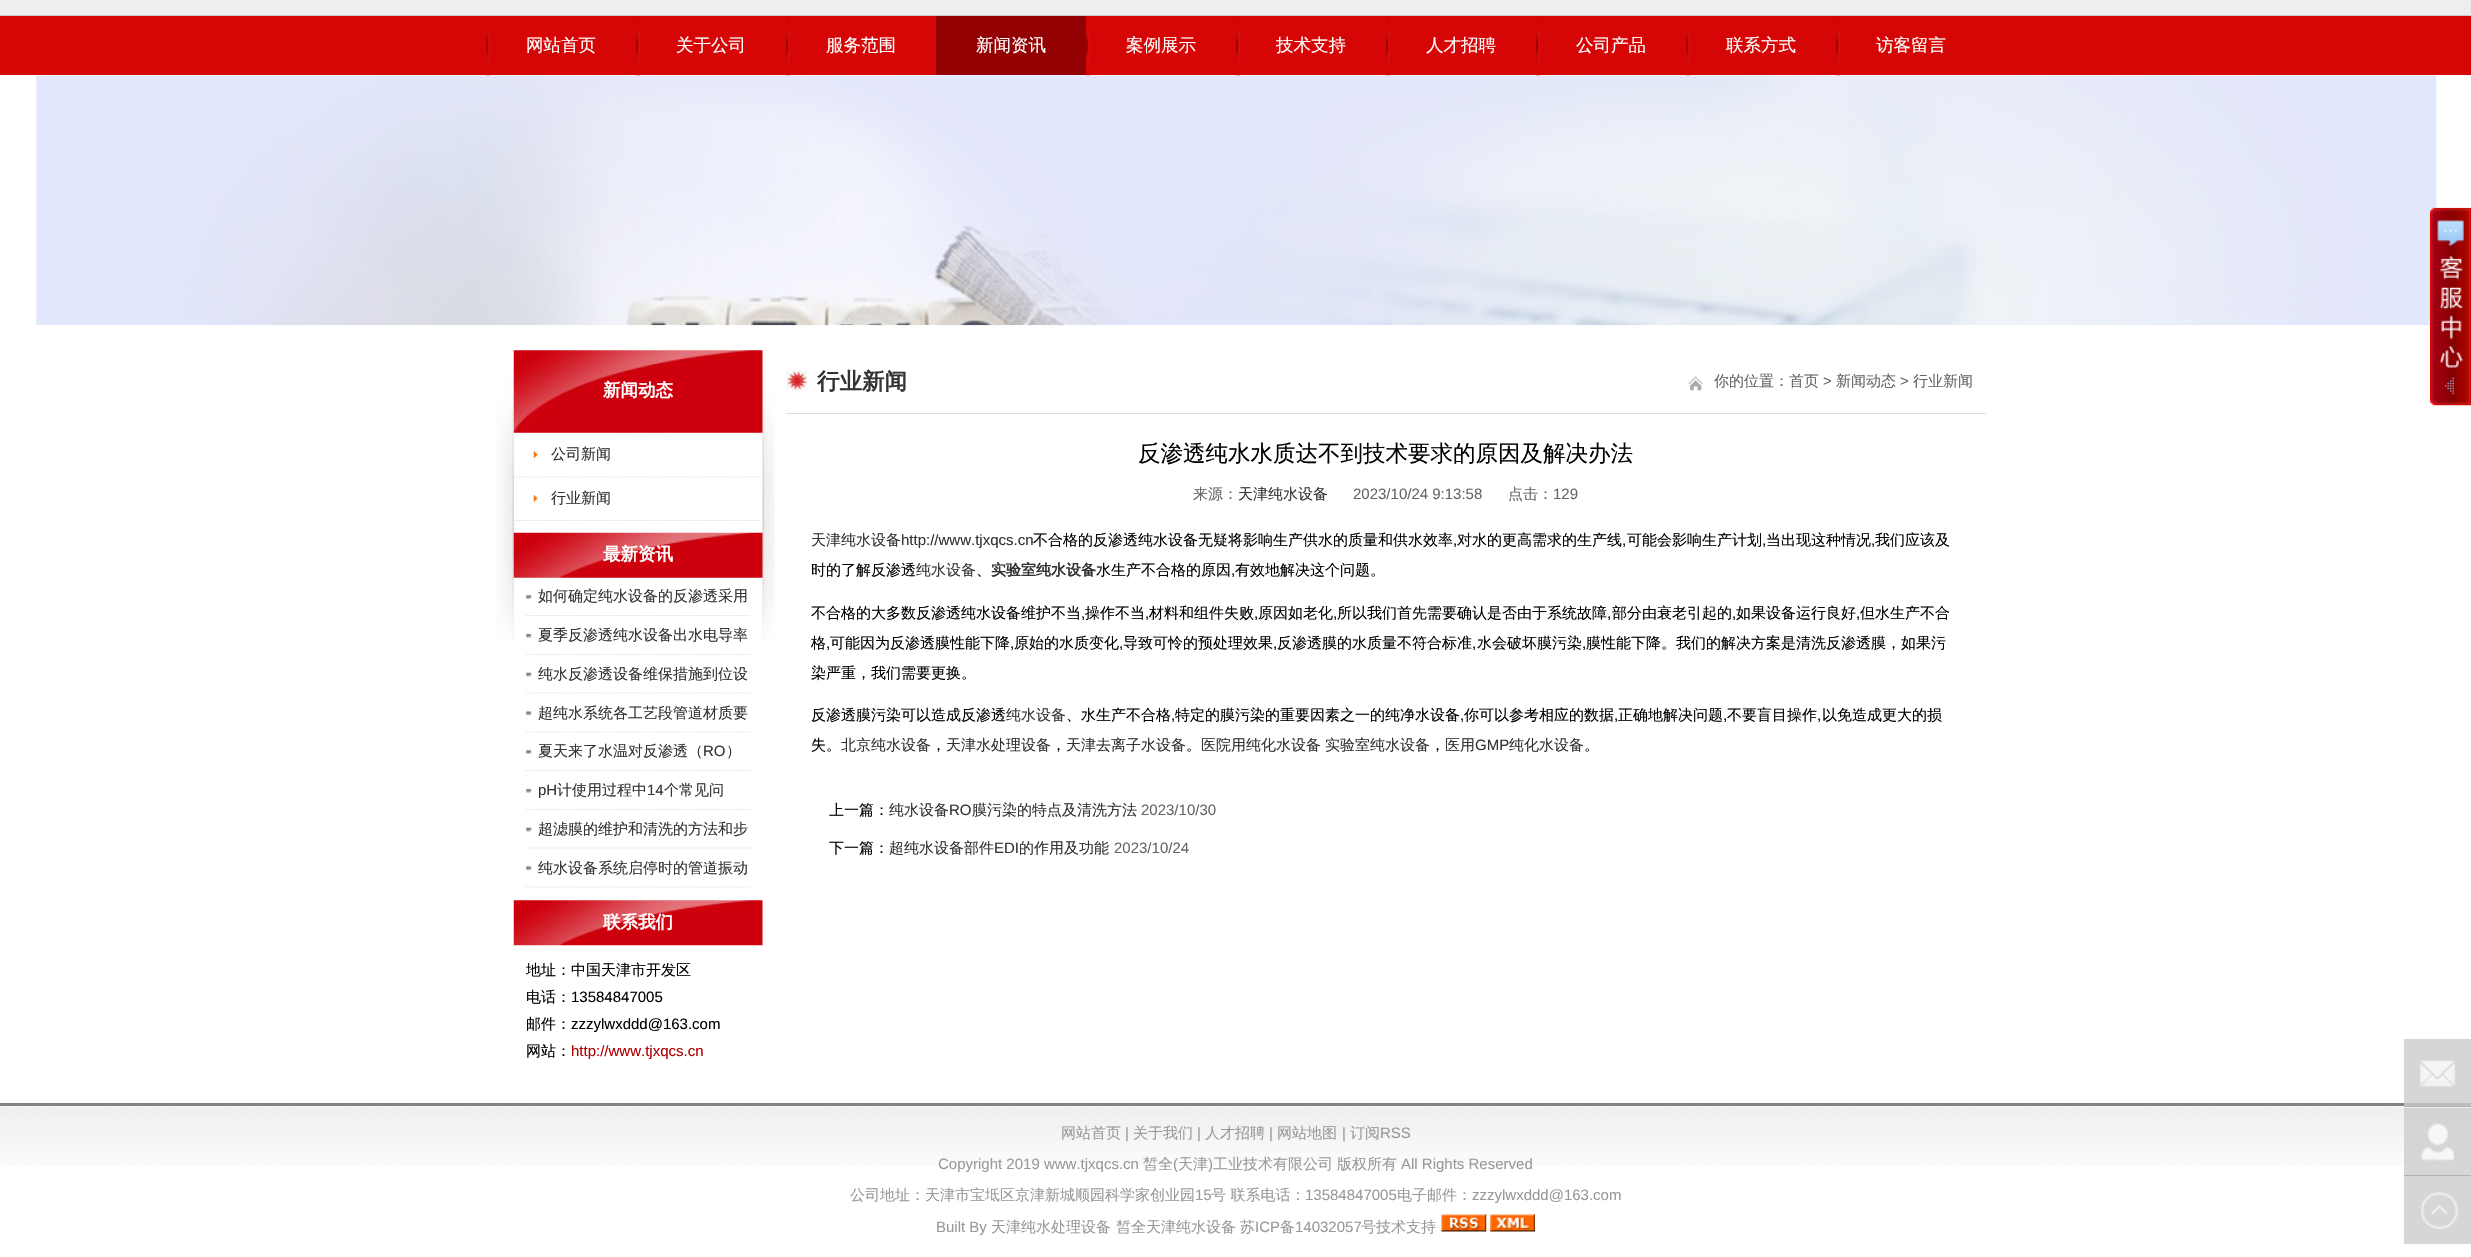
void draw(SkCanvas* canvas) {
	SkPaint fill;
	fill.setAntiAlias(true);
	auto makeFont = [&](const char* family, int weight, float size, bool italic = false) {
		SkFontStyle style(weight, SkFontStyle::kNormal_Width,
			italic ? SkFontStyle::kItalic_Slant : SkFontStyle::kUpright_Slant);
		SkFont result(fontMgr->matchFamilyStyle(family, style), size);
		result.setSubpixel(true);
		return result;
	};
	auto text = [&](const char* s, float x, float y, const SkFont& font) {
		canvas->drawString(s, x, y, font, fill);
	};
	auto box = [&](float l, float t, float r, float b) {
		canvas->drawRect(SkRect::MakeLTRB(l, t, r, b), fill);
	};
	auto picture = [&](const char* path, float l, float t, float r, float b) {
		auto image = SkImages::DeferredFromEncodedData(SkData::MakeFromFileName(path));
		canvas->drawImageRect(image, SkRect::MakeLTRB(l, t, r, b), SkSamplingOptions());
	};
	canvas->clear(0xFFFFFFFF);
	fill.setColor(0xFFD6D6D6);
	box(2404, 1039, 2471, 1103);
	fill.setColor(0xFFEEEEEE);
	box(0, 0, 2471, 15);
	fill.setColor(0xFFCBCACA);
	box(0, 15, 2471, 16);
	fill.setColor(0xFFD60606);
	box(0, 16, 2471, 75);
	picture("image8.png", 36, 75, 2437, 326);
	picture("image0.png", 486, 17, 490, 76);
	picture("image1.png", 636, 17, 640, 76);
	picture("image2.png", 786, 17, 790, 76);
	fill.setColor(0xFF930103);
	box(936, 16, 1086, 75);
	picture("image3.png", 1086, 17, 1090, 76);
	picture("image3.png", 1236, 17, 1240, 76);
	picture("image3.png", 1386, 17, 1390, 76);
	picture("image4.png", 1536, 17, 1540, 76);
	picture("image5.png", 1686, 17, 1690, 76);
	picture("image6.png", 1836, 17, 1840, 76);
	picture("image7.png", 2430, 207, 2471, 406);
	picture("image9.png", 496, 370, 775, 641);
	picture("image10.png", 513, 350, 763, 433);
	picture("image11.png", 533, 451, 538, 458);
	fill.setStyle(SkPaint::kStroke_Style);
	fill.setStrokeWidth(1.2f);
	fill.setColor(0xFFDDDDDD);
	fill.setPathEffect(SkDashPathEffect::Make({{1.25f, 1.25f}}, 0));
	canvas->drawPath(SkPathBuilder().moveTo(514, 477).lineTo(762.5f, 477).detach(), fill);
	fill.setPathEffect(nullptr);
	picture("image12.png", 533, 495, 538, 502);
	fill.setPathEffect(SkDashPathEffect::Make({{1.25f, 1.25f}}, 0));
	canvas->drawPath(SkPathBuilder().moveTo(514, 520.5f).lineTo(762.5f, 520.5f).detach(), fill);
	fill.setPathEffect(nullptr);
	picture("image13.png", 513, 532, 763, 578);
	picture("image14.png", 526, 593, 532, 599);
	fill.setPathEffect(SkDashPathEffect::Make({{1.25f, 1.25f}}, 0));
	canvas->drawPath(SkPathBuilder().moveTo(526, 615.5f).lineTo(750, 615.5f).detach(), fill);
	fill.setPathEffect(nullptr);
	picture("image15.png", 526, 632, 532, 638);
	fill.setPathEffect(SkDashPathEffect::Make({{1.25f, 1.25f}}, 0));
	canvas->drawPath(SkPathBuilder().moveTo(526, 654.5f).lineTo(750, 654.5f).detach(), fill);
	fill.setPathEffect(nullptr);
	picture("image16.png", 526, 670, 532, 677);
	fill.setPathEffect(SkDashPathEffect::Make({{1.25f, 1.25f}}, 0));
	canvas->drawPath(SkPathBuilder().moveTo(526, 693).lineTo(750, 693).detach(), fill);
	fill.setPathEffect(nullptr);
	picture("image17.png", 526, 709, 532, 716);
	fill.setPathEffect(SkDashPathEffect::Make({{1.25f, 1.25f}}, 0));
	canvas->drawPath(SkPathBuilder().moveTo(526, 732).lineTo(750, 732).detach(), fill);
	fill.setPathEffect(nullptr);
	picture("image14.png", 526, 748, 532, 754);
	fill.setPathEffect(SkDashPathEffect::Make({{1.25f, 1.25f}}, 0));
	canvas->drawPath(SkPathBuilder().moveTo(526, 770.5f).lineTo(750, 770.5f).detach(), fill);
	fill.setPathEffect(nullptr);
	picture("image15.png", 526, 787, 532, 793);
	fill.setPathEffect(SkDashPathEffect::Make({{1.25f, 1.25f}}, 0));
	canvas->drawPath(SkPathBuilder().moveTo(526, 809.5f).lineTo(750, 809.5f).detach(), fill);
	fill.setPathEffect(nullptr);
	picture("image16.png", 526, 825, 532, 832);
	fill.setPathEffect(SkDashPathEffect::Make({{1.25f, 1.25f}}, 0));
	canvas->drawPath(SkPathBuilder().moveTo(526, 848).lineTo(750, 848).detach(), fill);
	fill.setPathEffect(nullptr);
	picture("image17.png", 526, 864, 532, 871);
	fill.setPathEffect(SkDashPathEffect::Make({{1.25f, 1.25f}}, 0));
	canvas->drawPath(SkPathBuilder().moveTo(526, 887).lineTo(750, 887).detach(), fill);
	fill.setPathEffect(nullptr);
	picture("image18.png", 513, 900, 763, 946);
	picture("image19.png", 786, 370, 808, 391);
	fill.setStyle(SkPaint::kFill_Style);
	box(786, 413, 1986, 414);
	picture("image20.png", 1688, 376, 1703, 391);
	picture("image21.png", 0, 1106, 2471, 1166);
	fill.setColor(0xFF828282);
	box(0, 1103, 2404, 1106);
	fill.setColor(0xFFBDBDBD);
	box(2404, 1103, 2471, 1106);
	fill.setColor(0xFFB2B2B2);
	box(2404, 1106, 2471, 1107);
	picture("image22.png", 2419, 1060, 2456, 1087);
	box(2404, 1175, 2471, 1176);
	fill.setColor(0xCCCCCCCC);
	box(2404, 1108, 2471, 1175);
	picture("image23.png", 2421, 1123, 2454, 1161);
	fill.setColor(0xFFD6D6D6);
	box(2404, 1176, 2471, 1244);
	picture("image24.png", 2421, 1192, 2458, 1229);
	picture("image25.png", 1441, 1214, 1487, 1232);
	picture("image26.png", 1490, 1214, 1535, 1232);
	auto font1 = makeFont("WenQuanYi Zen Hei", 500, 17.5f);
	fill.setColor(0xFFFFFFFF);
	text("网站首页", 526, 51, font1);
	text("关于公司", 676, 51, font1);
	text("服务范围", 826, 51, font1);
	text("新闻资讯", 976, 51, font1);
	text("案例展示", 1126, 51, font1);
	text("技术支持", 1276, 51, font1);
	text("人才招聘", 1426, 51, font1);
	text("公司产品", 1576, 51, font1);
	text("联系方式", 1726, 51, font1);
	text("访客留言", 1876, 51, font1);
	auto font2 = makeFont("WenQuanYi Zen Hei", 700, 17.5f);
	text("新闻动态", 603, 396, font2);
	auto font3 = makeFont("WenQuanYi Zen Hei", 500, 15);
	fill.setColor(0xFF333333);
	text("公司新闻", 551, 459, font3);
	text("行业新闻", 551, 503, font3);
	fill.setColor(0xFFFFFFFF);
	text("最新资讯", 603, 560, font2);
	fill.setColor(0xFF333333);
	text("如何确定纯水设备的反渗透采用", 538, 601, font3);
	text("夏季反渗透纯水设备出水电导率", 538, 640, font3);
	text("纯水反渗透设备维保措施到位设", 538, 679, font3);
	text("超纯水系统各工艺段管道材质要", 538, 718, font3);
	text("夏天来了水温对反渗透（", 538, 756, font3);
	auto font4 = makeFont("Liberation Sans", 400, 15);
	text("RO", 703, 756, font4);
	text("）", 726, 756, font3);
	text("pH", 538, 795, font4);
	text("计使用过程中", 557, 795, font3);
	text("14", 647, 795, font4);
	text("个常见问", 664, 795, font3);
	text("超滤膜的维护和清洗的方法和步", 538, 834, font3);
	text("纯水设备系统启停时的管道振动", 538, 873, font3);
	fill.setColor(0xFFFFFFFF);
	text("联系我们", 603, 928, font2);
	fill.setColor(0xFF000000);
	text("地址：中国天津市开发区", 526, 975, font3);
	text("电话：", 526, 1002, font3);
	text("13584847005", 571, 1002, font4);
	text("邮件：", 526, 1029, font3);
	text("zzzylwxddd@163.com", 571, 1029, font4);
	text("网站：", 526, 1056, font3);
	fill.setColor(0xFFB00002);
	text("http://www.tjxqcs.cn", 571, 1056, font4);
	auto font5 = makeFont("WenQuanYi Zen Hei", 700, 22.5f);
	fill.setColor(0xFF333333);
	text("行业新闻", 817, 389, font5);
	fill.setColor(0xFF666666);
	text("你的位置：首页", 1714, 386, font3);
	text(">", 1823, 386, font4);
	text("新闻动态", 1836, 386, font3);
	text(">", 1900, 386, font4);
	text("行业新闻", 1913, 386, font3);
	auto font6 = makeFont("WenQuanYi Zen Hei", 500, 22.5f);
	fill.setColor(0xFF000000);
	text("反渗透纯水水质达不到技术要求的原因及解决办法", 1138, 461, font6);
	fill.setColor(0xFF666666);
	text("来源：", 1193, 499, font3);
	fill.setColor(0xFF333333);
	text("天津纯水设备", 1238, 499, font3);
	fill.setColor(0xFF666666);
	text("2023/10/24 9:13:58", 1353, 499, font4);
	text("点击：", 1508, 499, font3);
	text("129", 1553, 499, font4);
	fill.setColor(0xFF333333);
	text("天津纯水设备", 811, 545, font3);
	text("http://www.tjxqcs.cn", 901, 545, font4);
	fill.setColor(0xFF000000);
	text("不合格的反渗透纯水设备无疑将影响生产供水的质量和供水效率", 1033, 545, font3);
	text(",", 1453, 545, font4);
	text("对水的更高需求的生产线", 1457, 545, font3);
	text(",", 1622, 545, font4);
	text("可能会影响生产计划", 1627, 545, font3);
	text(",", 1762, 545, font4);
	text("当出现这种情况", 1766, 545, font3);
	text(",", 1871, 545, font4);
	text("我们应该及", 1875, 545, font3);
	text("时的了解反渗透", 811, 575, font3);
	fill.setColor(0xFF333333);
	text("纯水设备", 916, 575, font3);
	fill.setColor(0xFF000000);
	text("、", 976, 575, font3);
	auto font7 = makeFont("WenQuanYi Zen Hei", 700, 15);
	fill.setColor(0xFF333333);
	text("实验室纯水设备", 991, 575, font7);
	fill.setColor(0xFF000000);
	text("水生产不合格的原因", 1096, 575, font3);
	text(",", 1231, 575, font4);
	text("有效地解决这个问题。", 1235, 575, font3);
	text("不合格的大多数反渗透纯水设备维护不当", 811, 618, font3);
	text(",", 1081, 618, font4);
	text("操作不当", 1085, 618, font3);
	text(",", 1145, 618, font4);
	text("材料和组件失败", 1149, 618, font3);
	text(",", 1254, 618, font4);
	text("原因如老化", 1258, 618, font3);
	text(",", 1333, 618, font4);
	text("所以我们首先需要确认是否由于系统故障", 1337, 618, font3);
	text(",", 1607, 618, font4);
	text("部分由衰老引起的", 1612, 618, font3);
	text(",", 1732, 618, font4);
	text("如果设备运行良好", 1736, 618, font3);
	text(",", 1856, 618, font4);
	text("但水生产不合", 1860, 618, font3);
	text("格", 811, 648, font3);
	text(",", 826, 648, font4);
	text("可能因为反渗透膜性能下降", 830, 648, font3);
	text(",", 1010, 648, font4);
	text("原始的水质变化", 1014, 648, font3);
	text(",", 1119, 648, font4);
	text("导致可怜的预处理效果", 1123, 648, font3);
	text(",", 1273, 648, font4);
	text("反渗透膜的水质量不符合标准", 1277, 648, font3);
	text(",", 1472, 648, font4);
	text("水会破坏膜污染", 1477, 648, font3);
	text(",", 1582, 648, font4);
	text("膜性能下降。我们的解决方案是清洗反渗透膜，如果污", 1586, 648, font3);
	text("染严重，我们需要更换。", 811, 678, font3);
	text("反渗透膜污染可以造成反渗透", 811, 720, font3);
	fill.setColor(0xFF333333);
	text("纯水设备", 1006, 720, font3);
	fill.setColor(0xFF000000);
	text("、水生产不合格", 1066, 720, font3);
	text(",", 1171, 720, font4);
	text("特定的膜污染的重要因素之一的纯净水设备", 1175, 720, font3);
	text(",", 1460, 720, font4);
	text("你可以参考相应的数据", 1464, 720, font3);
	text(",", 1614, 720, font4);
	text("正确地解决问题", 1618, 720, font3);
	text(",", 1723, 720, font4);
	text("不要盲目操作", 1727, 720, font3);
	text(",", 1817, 720, font4);
	text("以免造成更大的损", 1822, 720, font3);
	text("失。", 811, 750, font3);
	fill.setColor(0xFF333333);
	text("北京纯水设备", 841, 750, font3);
	fill.setColor(0xFF000000);
	text("，", 931, 750, font3);
	fill.setColor(0xFF333333);
	text("天津水处理设备", 946, 750, font3);
	fill.setColor(0xFF000000);
	text("，", 1051, 750, font3);
	fill.setColor(0xFF333333);
	text("天津去离子水设备", 1066, 750, font3);
	fill.setColor(0xFF000000);
	text("。", 1186, 750, font3);
	fill.setColor(0xFF333333);
	text("医院用纯化水设备", 1201, 750, font3);
	text("实验室纯水设备", 1325, 750, font3);
	fill.setColor(0xFF000000);
	text("，", 1430, 750, font3);
	fill.setColor(0xFF333333);
	text("医用", 1445, 750, font3);
	text("GMP", 1475, 750, font4);
	text("纯化水设备", 1509, 750, font3);
	fill.setColor(0xFF000000);
	text("。", 1584, 750, font3);
	text("上一篇：", 829, 815, font3);
	fill.setColor(0xFF333333);
	text("纯水设备", 889, 815, font3);
	text("RO", 949, 815, font4);
	text("膜污染的特点及清洗方法", 972, 815, font3);
	fill.setColor(0xFF666666);
	text("2023/10/30", 1141, 815, font4);
	fill.setColor(0xFF000000);
	text("下一篇：", 829, 853, font3);
	fill.setColor(0xFF333333);
	text("超纯水设备部件", 889, 853, font3);
	text("EDI", 994, 853, font4);
	text("的作用及功能", 1019, 853, font3);
	fill.setColor(0xFF666666);
	text("2023/10/24", 1114, 853, font4);
	fill.setColor(0xFF999999);
	text("网站首页", 1061, 1138, font3);
	text("|", 1125, 1138, font4);
	text("关于我们", 1133, 1138, font3);
	text("|", 1197, 1138, font4);
	text("人才招聘", 1205, 1138, font3);
	text("|", 1269, 1138, font4);
	text("网站地图", 1277, 1138, font3);
	text("|", 1342, 1138, font4);
	text("订阅", 1350, 1138, font3);
	text("RSS", 1380, 1138, font4);
	text("Copyright 2019 www.tjxqcs.cn", 938, 1169, font4);
	text("皙全", 1143, 1169, font3);
	text("(", 1173, 1169, font4);
	text("天津", 1178, 1169, font3);
	text(")", 1208, 1169, font4);
	text("工业技术有限公司", 1213, 1169, font3);
	text("版权所有", 1337, 1169, font3);
	text("All Rights Reserved", 1401, 1169, font4);
	text("公司地址：天津市宝坻区京津新城顺园科学家创业园", 850, 1200, font3);
	text("15", 1195, 1200, font4);
	text("号 联系电话：", 1211, 1200, font3);
	text("13584847005", 1305, 1200, font4);
	text("电子邮件：", 1397, 1200, font3);
	text("zzzylwxddd@163.com", 1472, 1200, font4);
	text("Built By", 936, 1232, font4);
	text("天津纯水处理设备", 991, 1232, font3);
	text("皙全天津纯水设备", 1116, 1232, font3);
	text("苏", 1240, 1232, font3);
	text("ICP", 1255, 1232, font4);
	text("备", 1280, 1232, font3);
	text("14032057", 1295, 1232, font4);
	text("号技术支持", 1361, 1232, font3);
}
